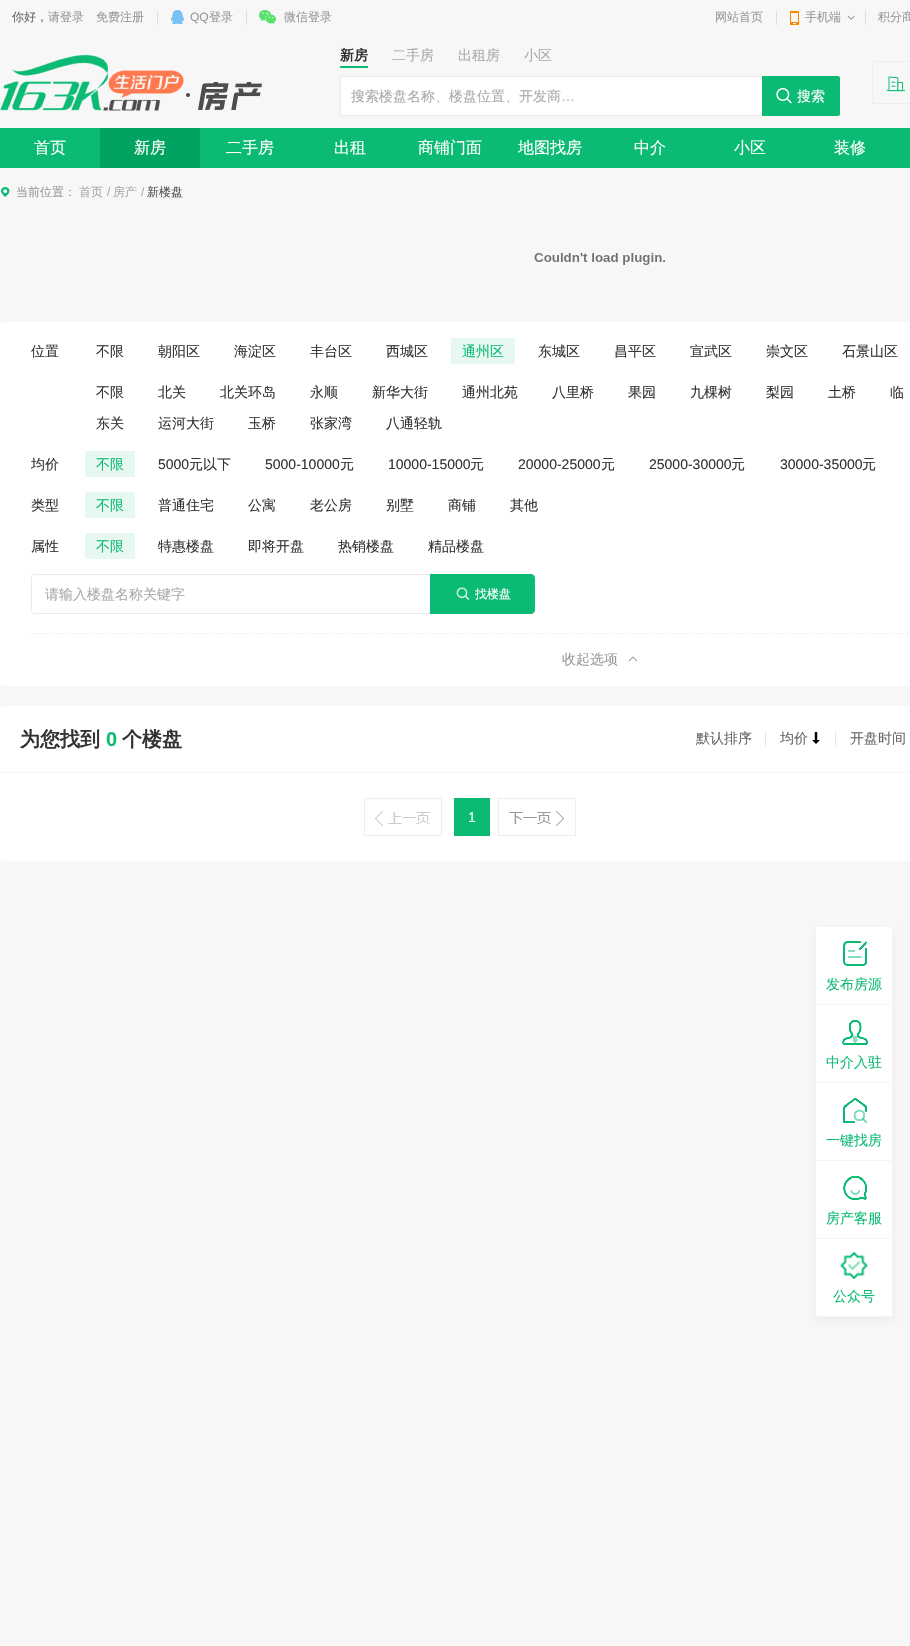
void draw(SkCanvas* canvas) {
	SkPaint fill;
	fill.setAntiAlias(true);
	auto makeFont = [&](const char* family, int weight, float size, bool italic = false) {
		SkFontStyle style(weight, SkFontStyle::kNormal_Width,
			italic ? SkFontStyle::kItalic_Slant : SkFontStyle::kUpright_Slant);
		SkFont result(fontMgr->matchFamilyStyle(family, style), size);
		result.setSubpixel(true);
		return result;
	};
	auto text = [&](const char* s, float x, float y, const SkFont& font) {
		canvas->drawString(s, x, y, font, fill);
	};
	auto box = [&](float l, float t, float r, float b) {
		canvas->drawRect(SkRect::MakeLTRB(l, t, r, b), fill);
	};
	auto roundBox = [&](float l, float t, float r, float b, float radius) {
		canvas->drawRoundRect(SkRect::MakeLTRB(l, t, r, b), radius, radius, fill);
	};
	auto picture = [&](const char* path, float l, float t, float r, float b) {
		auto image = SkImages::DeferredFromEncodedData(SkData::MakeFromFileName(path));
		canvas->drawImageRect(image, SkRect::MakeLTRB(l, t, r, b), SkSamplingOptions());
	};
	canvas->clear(0xFFF7F7F7);
	fill.setColor(0xFFDDDDDD);
	box(157, 11, 158, 25);
	picture("image0.png", 171, 10, 184, 24);
	box(246, 11, 247, 25);
	picture("image1.png", 259, 10, 276, 24);
	box(776, 11, 777, 25);
	picture("image2.png", 790, 11, 799, 25);
	picture("image3.png", 847, 15, 855, 20);
	box(865, 11, 866, 25);
	picture("image4.png", 0, 55, 262, 111);
	fill.setColor(0xFF0CBB73);
	box(340, 66, 368, 68);
	fill.setColor(0xFFFFFFFF);
	canvas->drawRoundRect(SkRect::MakeLTRB(340.5f, 76.5f, 839.5f, 115.5f), 2.5f, 2.5f, fill);
	fill.setStyle(SkPaint::kStroke_Style);
	fill.setStrokeWidth(1);
	fill.setColor(0xFFEAEAEA);
	canvas->drawRoundRect(SkRect::MakeLTRB(340.5f, 76.5f, 839.5f, 115.5f), 2.5f, 2.5f, fill);
	fill.setStyle(SkPaint::kFill_Style);
	fill.setColor(0xFF0BBB73);
	canvas->drawPath(SkPathBuilder().moveTo(762, 76).lineTo(838, 76).cubicTo(839, 76, 840, 77, 840, 78).lineTo(840, 114).cubicTo(840, 115, 839, 116, 838, 116).lineTo(762, 116).close().detach(), fill);
	picture("image5.png", 776, 88, 792, 104);
	fill.setStyle(SkPaint::kStroke_Style);
	fill.setColor(0xFFEEEEEE);
	canvas->drawRoundRect(SkRect::MakeLTRB(872.5f, 61.5f, 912.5f, 103.5f), 1.5f, 1.5f, fill);
	picture("image6.png", 886, 76, 906, 92);
	fill.setStyle(SkPaint::kFill_Style);
	fill.setColor(0xFF0BBB73);
	box(0, 128, 910, 168);
	fill.setColor(0xFF00A360);
	box(100, 128, 200, 168);
	picture("image7.png", 1, 187, 10, 197);
	picture("image8.png", 534, 253, 665, 265);
	fill.setColor(0xFFFFFFFF);
	roundBox(0, 322, 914, 686, 4);
	fill.setStyle(SkPaint::kStroke_Style);
	fill.setColor(0xFFF0F0F0);
	fill.setPathEffect(SkDashPathEffect::Make({{3, 2}}, 0));
	canvas->drawPath(SkPathBuilder().moveTo(31, 633.5f).lineTo(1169, 633.5f).detach(), fill);
	fill.setPathEffect(nullptr);
	fill.setStyle(SkPaint::kFill_Style);
	fill.setColor(0xFFE6F8F1);
	box(451, 338, 515, 364);
	box(85, 451, 135, 477);
	box(85, 492, 135, 518);
	box(85, 533, 135, 559);
	canvas->save();
	canvas->clipRect(SkRect::MakeLTRB(31, 322, 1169, 633));
	fill.setColor(0xFFEAEAEA);
	canvas->drawPath(SkPathBuilder(SkPathFillType::kEvenOdd).moveTo(31, 578).cubicTo(31, 583, 30, 610, 32, 613).lineTo(32, 575).close().moveTo(35, 574).lineTo(32, 575).lineTo(534, 575).lineTo(531, 574).close().moveTo(535, 578).lineTo(534, 575).lineTo(534, 613).cubicTo(536, 610, 535, 583, 535, 578).close().moveTo(531, 614).lineTo(534, 613).lineTo(32, 613).lineTo(35, 614).close().detach(), fill);
	canvas->restore();
	fill.setColor(0xFF0BBB73);
	canvas->drawPath(SkPathBuilder().moveTo(430, 574).lineTo(531, 574).cubicTo(533, 574, 535, 576, 535, 578).lineTo(535, 610).cubicTo(535, 612, 533, 614, 531, 614).lineTo(430, 614).close().detach(), fill);
	picture("image9.png", 456, 587, 470, 601);
	picture("image10.png", 629, 656, 637, 662);
	fill.setColor(0xFFFFFFFF);
	roundBox(0, 706, 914, 861, 4);
	fill.setColor(0xFFF5F5F5);
	box(0, 772, 910, 773);
	fill.setColor(0xFFE5E5E5);
	box(765, 732, 766, 746);
	picture("image11.png", 812, 732, 820, 744);
	box(835, 732, 836, 746);
	picture("image12.png", 375, 811, 430, 826);
	fill.setStyle(SkPaint::kStroke_Style);
	fill.setColor(0xFFEEEEEE);
	canvas->drawRect(SkRect::MakeLTRB(364.5f, 798.5f, 441.5f, 835.5f), fill);
	fill.setStyle(SkPaint::kFill_Style);
	fill.setColor(0xFF0BBB73);
	box(454, 798, 490, 836);
	picture("image13.png", 509, 811, 564, 826);
	fill.setStyle(SkPaint::kStroke_Style);
	fill.setColor(0xFFEDEDED);
	canvas->drawRect(SkRect::MakeLTRB(498.5f, 798.5f, 575.5f, 835.5f), fill);
	fill.setStyle(SkPaint::kFill_Style);
	fill.setColor(0x33B6B6B6);
	fill.setMaskFilter(SkMaskFilter::MakeBlur(kNormal_SkBlurStyle, 4));
	canvas->drawRoundRect(SkRect::MakeLTRB(816, 930, 892, 1320), 4, 4, fill);
	fill.setMaskFilter(nullptr);
	fill.setColor(0xFFFFFFFF);
	box(816, 927, 892, 1004);
	fill.setColor(0xFFF5F5F5);
	box(816, 1004, 892, 1005);
	picture("image14.png", 843, 941, 867, 966);
	fill.setColor(0xFFFFFFFF);
	box(816, 1005, 892, 1082);
	fill.setColor(0xFFF5F5F5);
	box(816, 1082, 892, 1083);
	picture("image15.png", 842, 1020, 868, 1045);
	fill.setColor(0xFFFFFFFF);
	box(816, 1083, 892, 1160);
	fill.setColor(0xFFF5F5F5);
	box(816, 1160, 892, 1161);
	picture("image16.png", 843, 1098, 867, 1123);
	fill.setColor(0xFFFFFFFF);
	box(816, 1161, 892, 1238);
	fill.setColor(0xFFF5F5F5);
	box(816, 1238, 892, 1239);
	picture("image17.png", 843, 1176, 867, 1200);
	fill.setColor(0xFFFFFFFF);
	box(816, 1239, 892, 1316);
	fill.setColor(0xFFF5F5F5);
	box(816, 1316, 892, 1317);
	picture("image18.png", 840, 1252, 868, 1279);
	auto font1 = makeFont("WenQuanYi Zen Hei", 500, 12);
	fill.setColor(0xFF666666);
	text("你好，", 12, 21, font1);
	fill.setColor(0xFF999999);
	text("请登录", 48, 21, font1);
	text("免费注册", 96, 21, font1);
	auto font2 = makeFont("Liberation Sans", 400, 12);
	text("QQ", 190, 21, font2);
	text("登录", 209, 21, font1);
	text("微信登录", 284, 21, font1);
	text("网站首页", 715, 21, font1);
	text("手机端", 805, 21, font1);
	text("积分商", 878, 21, font1);
	auto font3 = makeFont("WenQuanYi Zen Hei", 700, 14);
	fill.setColor(0xFF333333);
	text("新房", 340, 60, font3);
	auto font4 = makeFont("WenQuanYi Zen Hei", 500, 14);
	fill.setColor(0xFFAAAAAA);
	text("二手房", 392, 60, font4);
	text("出租房", 458, 60, font4);
	text("小区", 524, 60, font4);
	text("搜索楼盘名称、楼盘位置、开发商", 351, 101, font4);
	auto font5 = makeFont("Liberation Sans", 400, 14);
	text("…", 561, 101, font5);
	fill.setColor(0xFFFFFFFF);
	text("搜索", 797, 101, font4);
	auto font6 = makeFont("WenQuanYi Zen Hei", 500, 16);
	text("首页", 34, 153, font6);
	text("新房", 134, 153, font6);
	text("二手房", 226, 153, font6);
	text("出租", 334, 153, font6);
	text("商铺门面", 418, 153, font6);
	text("地图找房", 518, 153, font6);
	text("中介", 634, 153, font6);
	text("小区", 734, 153, font6);
	text("装修", 834, 153, font6);
	fill.setColor(0xFF999999);
	text("当前位置：", 16, 196, font1);
	fill.setColor(0xFFAAAAAA);
	text("首页", 79, 196, font1);
	text("/", 107, 196, font2);
	text("房产", 113, 196, font1);
	text("/", 141, 196, font2);
	fill.setColor(0xFF555555);
	text("新楼盘", 147, 196, font1);
	fill.setColor(0xFF333333);
	text("位置", 31, 356, font4);
	text("不限", 96, 356, font4);
	text("朝阳区", 158, 356, font4);
	text("海淀区", 234, 356, font4);
	text("丰台区", 310, 356, font4);
	text("西城区", 386, 356, font4);
	fill.setColor(0xFF0CBB73);
	text("通州区", 462, 356, font4);
	fill.setColor(0xFF333333);
	text("东城区", 538, 356, font4);
	text("昌平区", 614, 356, font4);
	text("宣武区", 690, 356, font4);
	text("崇文区", 766, 356, font4);
	text("石景山区", 842, 356, font4);
	text("不限", 96, 397, font4);
	text("北关", 158, 397, font4);
	text("北关环岛", 220, 397, font4);
	text("永顺", 310, 397, font4);
	text("新华大街", 372, 397, font4);
	text("通州北苑", 462, 397, font4);
	text("八里桥", 552, 397, font4);
	text("果园", 628, 397, font4);
	text("九棵树", 690, 397, font4);
	text("梨园", 766, 397, font4);
	text("土桥", 828, 397, font4);
	text("临", 890, 397, font4);
	text("东关", 96, 428, font4);
	text("运河大街", 158, 428, font4);
	text("玉桥", 248, 428, font4);
	text("张家湾", 310, 428, font4);
	text("八通轻轨", 386, 428, font4);
	text("均价", 31, 469, font4);
	fill.setColor(0xFF0CBB73);
	text("不限", 96, 469, font4);
	fill.setColor(0xFF333333);
	text("5000", 158, 469, font5);
	text("元以下", 189, 469, font4);
	text("5000-10000", 265, 469, font5);
	text("元", 340, 469, font4);
	text("10000-15000", 388, 469, font5);
	text("元", 470, 469, font4);
	text("20000-25000", 518, 469, font5);
	text("元", 601, 469, font4);
	text("25000-30000", 649, 469, font5);
	text("元", 731, 469, font4);
	text("30000-35000", 780, 469, font5);
	text("元", 862, 469, font4);
	text("类型", 31, 510, font4);
	fill.setColor(0xFF0CBB73);
	text("不限", 96, 510, font4);
	fill.setColor(0xFF333333);
	text("普通住宅", 158, 510, font4);
	text("公寓", 248, 510, font4);
	text("老公房", 310, 510, font4);
	text("别墅", 386, 510, font4);
	text("商铺", 448, 510, font4);
	text("其他", 510, 510, font4);
	text("属性", 31, 551, font4);
	fill.setColor(0xFF0CBB73);
	text("不限", 96, 551, font4);
	fill.setColor(0xFF333333);
	text("特惠楼盘", 158, 551, font4);
	text("即将开盘", 248, 551, font4);
	text("热销楼盘", 338, 551, font4);
	text("精品楼盘", 428, 551, font4);
	fill.setColor(0xFFAAAAAA);
	text("请输入楼盘名称关键字", 45, 599, font4);
	fill.setColor(0xFFFFFFFF);
	text("找楼盘", 475, 598, font1);
	fill.setColor(0xFF999999);
	text("收起选项", 562, 664, font4);
	auto font7 = makeFont("WenQuanYi Zen Hei", 700, 20);
	fill.setColor(0xFF333333);
	text("为您找到", 20, 746, font7);
	auto font8 = makeFont("Liberation Sans", 700, 20);
	fill.setColor(0xFF0CBB73);
	text("0", 106, 746, font8);
	fill.setColor(0xFF333333);
	text("个楼盘", 122, 746, font7);
	fill.setColor(0xFF666666);
	text("默认排序", 696, 743, font4);
	text("均价", 780, 743, font4);
	text("开盘时间", 850, 743, font4);
	fill.setColor(0xFFFFFFFF);
	text("1", 468, 822, font5);
	fill.setColor(0xFF0CBB73);
	text("发布房源", 826, 989, font4);
	text("中介入驻", 826, 1067, font4);
	text("一键找房", 826, 1145, font4);
	text("房产客服", 826, 1223, font4);
	text("公众号", 833, 1301, font4);
}
